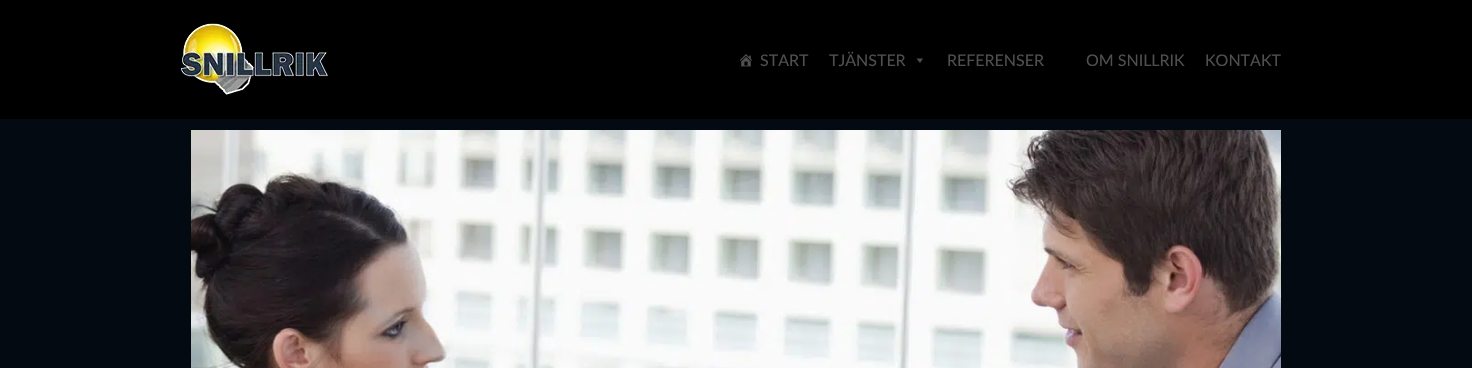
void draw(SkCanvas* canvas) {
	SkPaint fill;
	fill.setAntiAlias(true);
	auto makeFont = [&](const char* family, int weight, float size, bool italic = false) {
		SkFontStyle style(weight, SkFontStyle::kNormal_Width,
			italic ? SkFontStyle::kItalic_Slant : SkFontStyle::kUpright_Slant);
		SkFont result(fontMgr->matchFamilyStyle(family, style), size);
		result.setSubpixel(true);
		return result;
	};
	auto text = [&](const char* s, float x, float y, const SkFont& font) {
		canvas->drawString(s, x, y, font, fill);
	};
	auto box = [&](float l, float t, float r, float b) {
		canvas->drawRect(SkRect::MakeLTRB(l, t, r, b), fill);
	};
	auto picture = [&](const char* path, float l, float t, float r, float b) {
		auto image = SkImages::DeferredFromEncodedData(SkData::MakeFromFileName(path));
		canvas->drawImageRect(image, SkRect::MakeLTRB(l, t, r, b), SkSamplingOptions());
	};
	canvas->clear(0xFF030A12);
	fill.setColor(0xFF000000);
	box(0, 0, 1472, 119);
	picture("image0.png", 181, 23, 328, 95);
	picture("image1.png", 740, 54, 752, 67);
	fill.setColor(0xFF4F4F4F);
	canvas->drawPath(SkPathBuilder().moveTo(923, 58.5f).lineTo(920, 63).lineTo(916.5f, 58.5f).close().detach(), fill);
	picture("image2.png", 191, 130, 1281, 368);
	auto font1 = makeFont("Lato", 400, 16);
	text("START", 760, 66, font1);
	text("TJÄNSTER", 829, 66, font1);
	text("REFERENSER", 947, 66, font1);
	text("OM SNILLRIK", 1086, 66, font1);
	text("KONTAKT", 1205, 66, font1);
}
